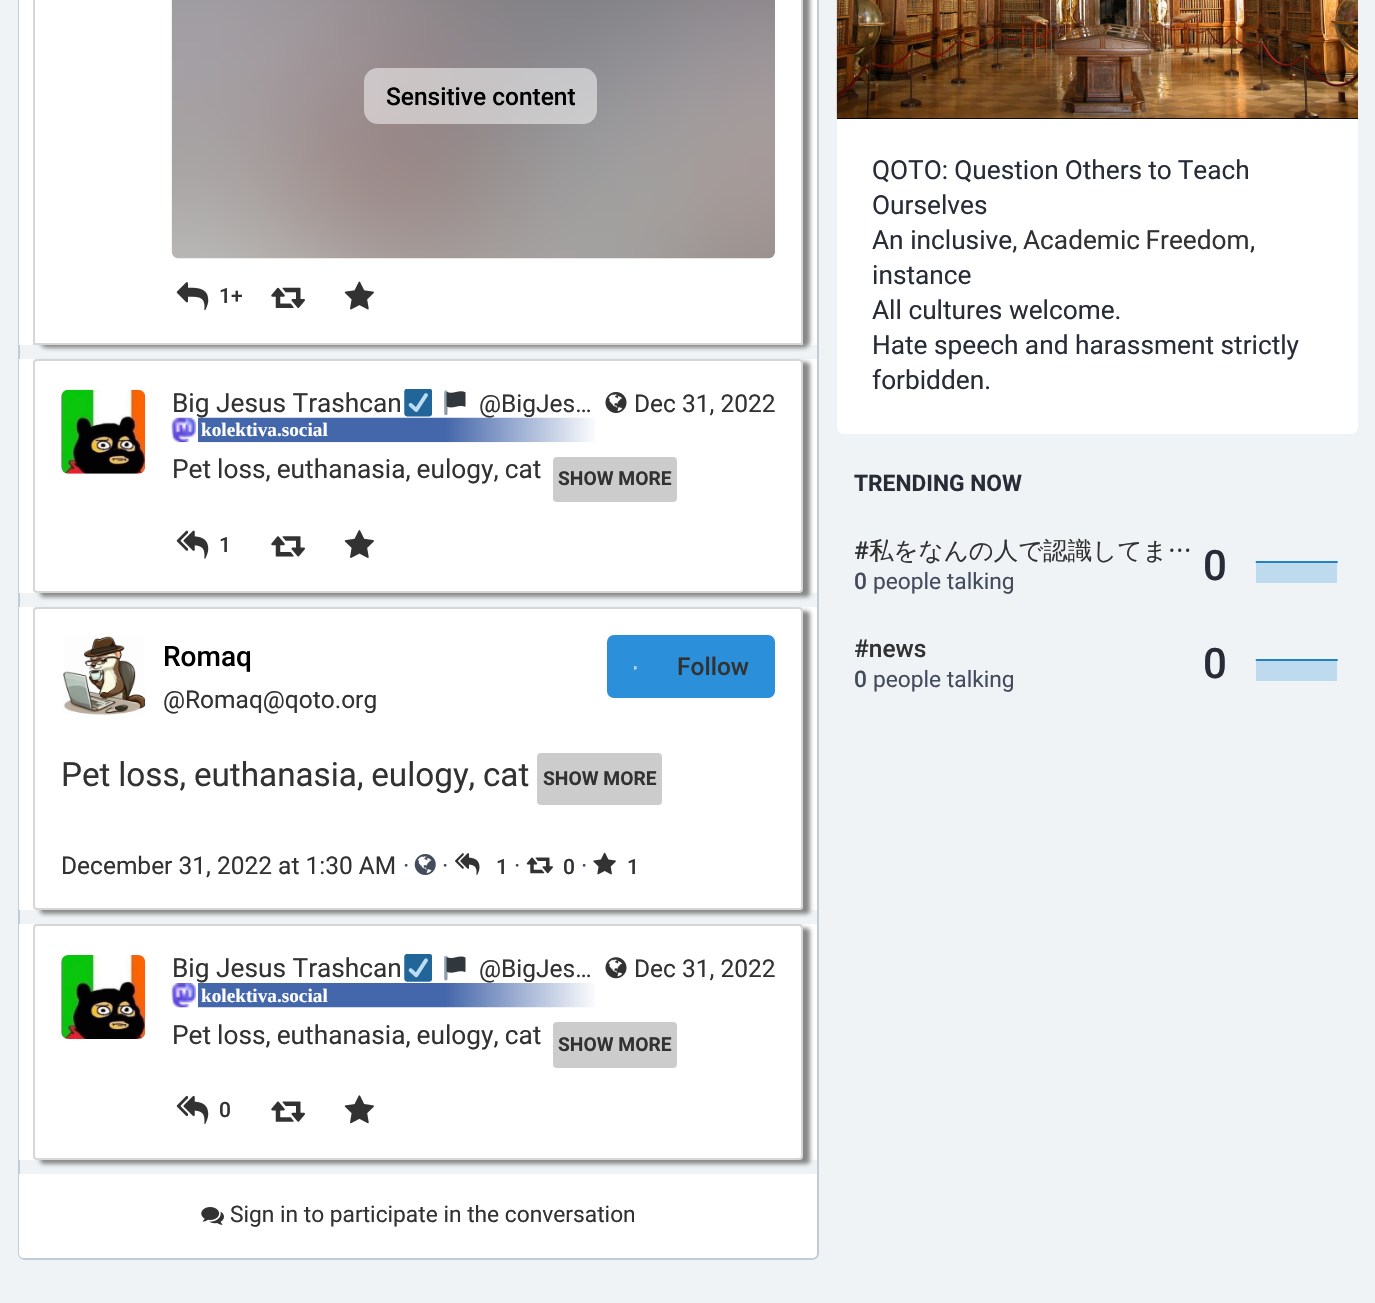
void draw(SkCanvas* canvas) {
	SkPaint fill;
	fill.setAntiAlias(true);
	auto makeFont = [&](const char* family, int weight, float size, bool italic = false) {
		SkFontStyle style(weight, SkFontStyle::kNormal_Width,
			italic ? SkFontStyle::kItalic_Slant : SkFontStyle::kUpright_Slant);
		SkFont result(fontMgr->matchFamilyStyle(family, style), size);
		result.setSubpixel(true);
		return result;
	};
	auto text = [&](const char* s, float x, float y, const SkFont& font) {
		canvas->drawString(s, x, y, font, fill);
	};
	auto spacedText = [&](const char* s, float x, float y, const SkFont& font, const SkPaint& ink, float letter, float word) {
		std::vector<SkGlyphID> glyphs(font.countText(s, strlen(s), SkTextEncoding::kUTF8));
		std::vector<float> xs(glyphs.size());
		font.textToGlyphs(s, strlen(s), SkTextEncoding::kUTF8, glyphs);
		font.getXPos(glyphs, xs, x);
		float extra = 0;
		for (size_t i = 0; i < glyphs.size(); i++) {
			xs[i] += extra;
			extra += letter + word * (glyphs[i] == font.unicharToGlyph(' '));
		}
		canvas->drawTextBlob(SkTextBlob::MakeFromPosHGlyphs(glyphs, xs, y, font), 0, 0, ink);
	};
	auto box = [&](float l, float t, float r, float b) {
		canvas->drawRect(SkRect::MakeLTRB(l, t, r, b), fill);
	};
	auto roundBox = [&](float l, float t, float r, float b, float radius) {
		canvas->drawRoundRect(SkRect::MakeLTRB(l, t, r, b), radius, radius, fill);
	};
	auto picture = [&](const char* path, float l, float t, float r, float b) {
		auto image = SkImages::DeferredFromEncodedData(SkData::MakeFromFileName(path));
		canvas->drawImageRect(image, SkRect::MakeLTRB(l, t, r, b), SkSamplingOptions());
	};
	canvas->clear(0xFFEFF3F5);
	fill.setStyle(SkPaint::kStroke_Style);
	fill.setStrokeWidth(2);
	fill.setColor(0xFFC0CDD9);
	canvas->drawRoundRect(SkRect::MakeLTRB(19, -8, 818, 1259), 6, 6, fill);
	fill.setStyle(SkPaint::kFill_Style);
	fill.setColor(0xFFFFFFFF);
	box(19, 0, 817, 345);
	fill.setColor(0xFF888888);
	fill.setMaskFilter(SkMaskFilter::MakeBlur(kNormal_SkBlurStyle, 2));
	canvas->drawRoundRect(SkRect::MakeLTRB(40, -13, 810, 348), 7, 7, fill);
	fill.setMaskFilter(nullptr);
	fill.setColor(0xFFFFFFFF);
	box(36, 0, 801, 343);
	fill.setStyle(SkPaint::kStroke_Style);
	fill.setColor(0xFFD6D6D6);
	canvas->drawRect(SkRect::MakeLTRB(34, -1, 802, 344), fill);
	picture("image0.png", 171, 0, 775, 259);
	fill.setStyle(SkPaint::kFill_Style);
	fill.setColor(0x80FFFFFF);
	roundBox(364, 68, 597, 124, 14);
	picture("image1.png", 176, 282, 209, 311);
	picture("image2.png", 271, 287, 305, 308);
	picture("image3.png", 344, 281, 374, 310);
	fill.setColor(0xFFFFFFFF);
	box(19, 359, 817, 593);
	fill.setColor(0xFF888888);
	fill.setMaskFilter(SkMaskFilter::MakeBlur(kNormal_SkBlurStyle, 2));
	canvas->drawRoundRect(SkRect::MakeLTRB(40, 362, 810, 597), 4, 4, fill);
	fill.setMaskFilter(nullptr);
	fill.setColor(0xFFFFFFFF);
	canvas->drawRoundRect(SkRect::MakeLTRB(34, 360, 802, 592), 3, 3, fill);
	fill.setStyle(SkPaint::kStroke_Style);
	fill.setColor(0xFFD6D6D6);
	canvas->drawRoundRect(SkRect::MakeLTRB(34, 360, 802, 592), 3, 3, fill);
	picture("image4.png", 61, 389, 146, 474);
	picture("image5.png", 404, 389, 432, 417);
	picture("image6.png", 444, 390, 466, 416);
	picture("image7.png", 171, 417, 595, 443);
	picture("image8.png", 605, 392, 627, 413);
	fill.setStyle(SkPaint::kFill_Style);
	fill.setColor(0xFFCCCCCC);
	roundBox(553, 457, 677, 502, 4);
	picture("image9.png", 176, 530, 209, 559);
	picture("image10.png", 271, 536, 305, 557);
	picture("image11.png", 344, 530, 374, 558);
	fill.setColor(0xFFFFFFFF);
	box(19, 607, 817, 910);
	fill.setColor(0xFF888888);
	fill.setMaskFilter(SkMaskFilter::MakeBlur(kNormal_SkBlurStyle, 2));
	canvas->drawRoundRect(SkRect::MakeLTRB(40, 611, 810, 914), 4, 4, fill);
	fill.setMaskFilter(nullptr);
	fill.setColor(0xFFFFFFFF);
	roundBox(33, 607, 803, 910, 4);
	fill.setStyle(SkPaint::kStroke_Style);
	fill.setColor(0xCCCCCCCC);
	canvas->drawRoundRect(SkRect::MakeLTRB(34, 608, 802, 909), 3, 3, fill);
	picture("image12.png", 63, 636, 146, 715);
	fill.setStyle(SkPaint::kFill_Style);
	fill.setColor(0xFF2B90D9);
	roundBox(607, 635, 775, 698, 7);
	picture("image13.png", 634, 666, 637, 670);
	fill.setColor(0xFFCCCCCC);
	roundBox(537, 753, 662, 805, 4);
	picture("image14.png", 414, 854, 436, 875);
	picture("image15.png", 455, 853, 480, 875);
	picture("image16.png", 526, 857, 553, 874);
	picture("image17.png", 593, 852, 616, 875);
	fill.setColor(0xFFFFFFFF);
	box(19, 924, 817, 1160);
	fill.setColor(0xFF888888);
	fill.setMaskFilter(SkMaskFilter::MakeBlur(kNormal_SkBlurStyle, 2));
	canvas->drawRoundRect(SkRect::MakeLTRB(40, 928, 810, 1164), 4, 4, fill);
	fill.setMaskFilter(nullptr);
	fill.setColor(0xFFFFFFFF);
	canvas->drawRoundRect(SkRect::MakeLTRB(34, 925, 802, 1159), 3, 3, fill);
	fill.setStyle(SkPaint::kStroke_Style);
	fill.setColor(0xFFD6D6D6);
	canvas->drawRoundRect(SkRect::MakeLTRB(34, 925, 802, 1159), 3, 3, fill);
	picture("image18.png", 61, 955, 146, 1039);
	picture("image19.png", 404, 954, 432, 982);
	picture("image20.png", 444, 955, 466, 981);
	picture("image21.png", 171, 983, 595, 1008);
	picture("image22.png", 605, 957, 627, 979);
	fill.setStyle(SkPaint::kFill_Style);
	fill.setColor(0xFFCCCCCC);
	roundBox(553, 1022, 677, 1068, 4);
	picture("image23.png", 176, 1095, 209, 1124);
	picture("image24.png", 271, 1101, 305, 1122);
	picture("image25.png", 344, 1095, 374, 1124);
	fill.setColor(0xFFFFFFFF);
	canvas->drawPath(SkPathBuilder().moveTo(19, 1174).lineTo(817, 1174).lineTo(817, 1253).cubicTo(817, 1256, 815, 1258, 812, 1258).lineTo(24, 1258).cubicTo(21, 1258, 19, 1256, 19, 1253).close().detach(), fill);
	picture("image26.png", 201, 1207, 224, 1225);
	fill.setColor(0xFF000000);
	box(837, 118, 1358, 119);
	picture("image27.png", 836, 0, 1358, 119);
	fill.setColor(0xFFFFFFFF);
	canvas->drawPath(SkPathBuilder().moveTo(837, 119).lineTo(1358, 119).lineTo(1358, 427).cubicTo(1358, 431, 1355, 434, 1351, 434).lineTo(844, 434).cubicTo(840, 434, 837, 431, 837, 427).close().detach(), fill);
	fill.setColor(0xFFBEDAEE);
	canvas->drawPath(SkPathBuilder().moveTo(1256, 562).lineTo(1337, 562).lineTo(1337, 583).lineTo(1256, 583).lineTo(1256, 562).detach(), fill);
	fill.setStyle(SkPaint::kStroke_Style);
	fill.setStrokeWidth(1.8f);
	fill.setStrokeCap(SkPaint::kRound_Cap);
	fill.setStrokeJoin(SkPaint::kRound_Join);
	fill.setColor(0xFF2380C3);
	canvas->drawPath(SkPathBuilder().moveTo(1256.5f, 562).lineTo(1337, 562).detach(), fill);
	fill.setStyle(SkPaint::kFill_Style);
	fill.setColor(0xFFBEDAEE);
	canvas->drawPath(SkPathBuilder().moveTo(1256, 660).lineTo(1337, 660).lineTo(1337, 681).lineTo(1256, 681).lineTo(1256, 660).detach(), fill);
	fill.setStyle(SkPaint::kStroke_Style);
	fill.setColor(0xFF2380C3);
	canvas->drawPath(SkPathBuilder().moveTo(1256.5f, 660).lineTo(1337, 660).detach(), fill);
	auto font1 = makeFont("Roboto", 500, 24.5f);
	fill.setStyle(SkPaint::kFill_Style);
	fill.setColor(0xFF000000);
	text("Sensitive content", 386, 105, font1);
	auto font2 = makeFont("Roboto", 500, 21);
	fill.setColor(0xFF323232);
	text("1+", 219, 303, font2);
	auto font3 = makeFont("Roboto", 400, 26.25f);
	text("Big Jesus Trashcan", 172, 412, font3);
	auto font4 = makeFont("Roboto", 400, 24.5f);
	text("@BigJes…", 479, 412, font4);
	auto font5 = makeFont("Liberation Serif", 700, 19.25f);
	fill.setColor(0xFFFFFFFF);
	text("kolektiva.social", 201, 436, font5);
	fill.setColor(0xFF323232);
	text("Dec 31, 2022", 634, 412, font4);
	spacedText("Pet loss, euthanasia, eulogy, cat", 172, 478, font3, fill, 0, -0.5f);
	auto font6 = makeFont("Roboto", 700, 19.25f);
	text("SHOW MORE", 558, 485, font6);
	text("1", 219, 552, font2);
	auto font7 = makeFont("Roboto", 500, 28);
	fill.setColor(0xFF000000);
	text("Romaq", 163, 666, font7);
	fill.setColor(0xFF323232);
	text("@Romaq@qoto.org", 163, 708, font4);
	text("Follow", 677, 675, font1);
	auto font8 = makeFont("Roboto", 400, 33.25f);
	spacedText("Pet loss, euthanasia, eulogy, cat", 61, 786, font8, fill, 0, -0.5f);
	text("SHOW MORE", 543, 785, font6);
	text("December 31, 2022 at 1:30 AM", 61, 874, font4);
	fill.setColor(0xFF444B5D);
	text("·", 403, 874, font4);
	text("·", 442, 874, font4);
	fill.setColor(0xFF323232);
	text("1", 496, 874, font2);
	fill.setColor(0xFF444B5D);
	text("·", 514, 874, font4);
	fill.setColor(0xFF323232);
	text("0", 563, 874, font2);
	fill.setColor(0xFF444B5D);
	text("·", 581, 874, font4);
	fill.setColor(0xFF323232);
	text("1", 627, 874, font2);
	text("Big Jesus Trashcan", 172, 977, font3);
	text("@BigJes…", 479, 977, font4);
	fill.setColor(0xFFFFFFFF);
	text("kolektiva.social", 201, 1002, font5);
	fill.setColor(0xFF323232);
	text("Dec 31, 2022", 634, 977, font4);
	spacedText("Pet loss, euthanasia, eulogy, cat", 172, 1044, font3, fill, 0, -0.5f);
	text("SHOW MORE", 558, 1051, font6);
	text("0", 219, 1117, font2);
	auto font9 = makeFont("Roboto", 400, 22.75f);
	text("Sign in to participate in the conversation", 230, 1222, font9);
	fill.setColor(0xFF282C37);
	spacedText("QOTO: Question Others to Teach", 872, 179, font3, fill, 0, -0.5f);
	text("Ourselves", 872, 214, font3);
	text("An inclusive,", 872, 249, font3);
	fill.setColor(0xFF323232);
	spacedText("Academic Freedom", 1023, 249, font3, fill, 0, -1);
	fill.setColor(0xFF282C37);
	text(",", 1250, 249, font3);
	text("instance", 872, 284, font3);
	text("All cultures welcome.", 872, 319, font3);
	text("Hate speech and harassment strictly", 872, 354, font3);
	text("forbidden.", 872, 389, font3);
	auto font10 = makeFont("Roboto", 700, 22.75f);
	text("TRENDING NOW", 854, 491, font10);
	fill.setColor(0xFF323232);
	text("#", 854, 559, font1);
	auto font11 = makeFont("WenQuanYi Zen Hei", 500, 24.5f);
	text("私をなんの人で認識してま…", 869, 559, font11);
	auto font12 = makeFont("Roboto", 500, 22.75f);
	fill.setColor(0xFF444B5D);
	text("0", 854, 589, font12);
	text("people talking", 873, 589, font9);
	auto font13 = makeFont("Roboto", 500, 42);
	fill.setColor(0xFF282C37);
	text("0", 1203, 580, font13);
	fill.setColor(0xFF323232);
	text("#news", 854, 657, font1);
	fill.setColor(0xFF444B5D);
	text("0", 854, 687, font12);
	text("people talking", 873, 687, font9);
	fill.setColor(0xFF282C37);
	text("0", 1203, 678, font13);
}
